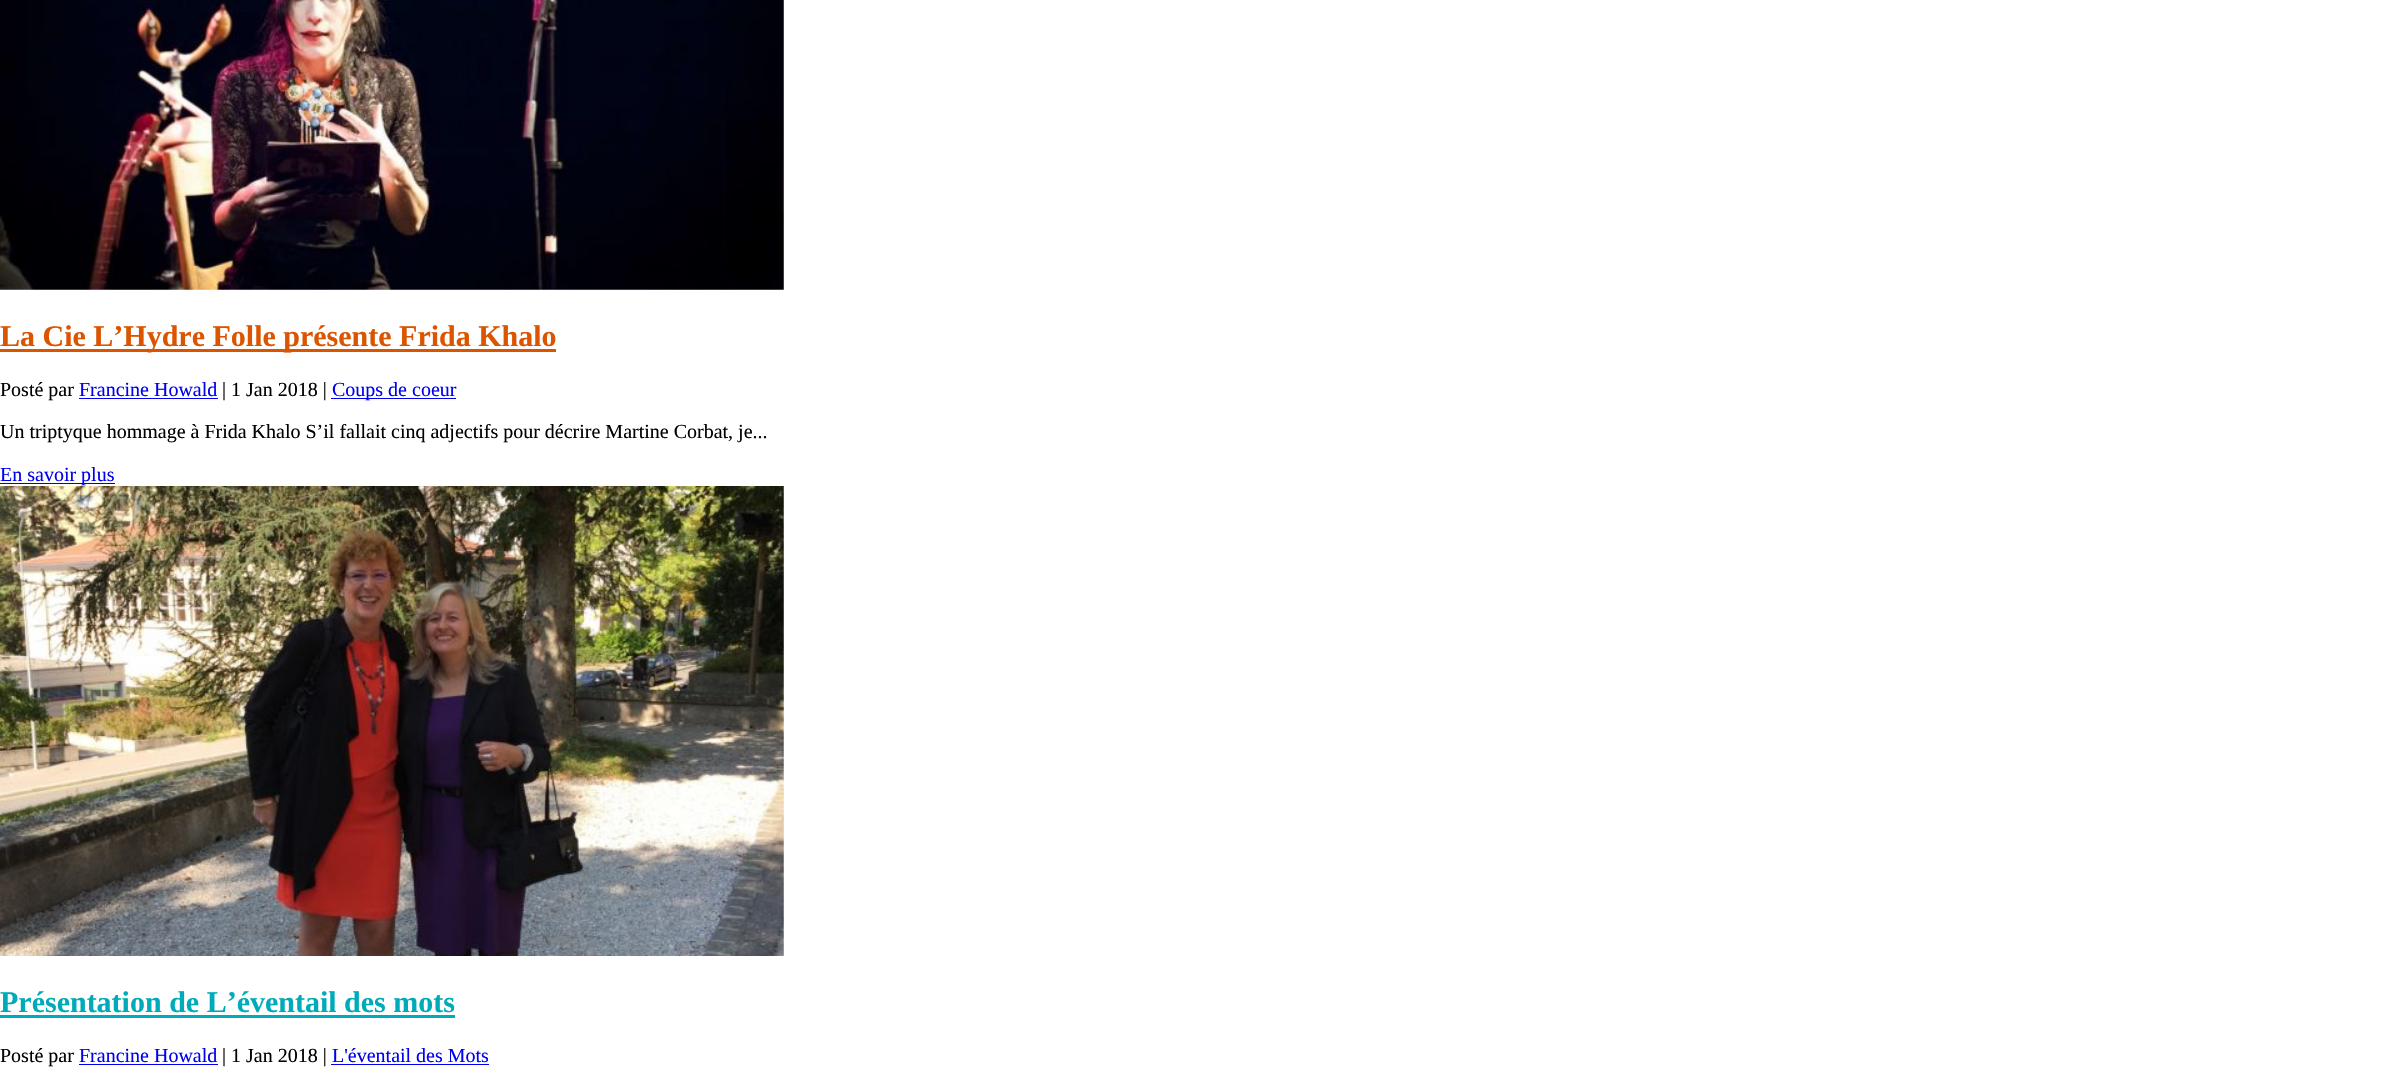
void draw(SkCanvas* canvas) {
	SkPaint fill;
	fill.setAntiAlias(true);
	auto makeFont = [&](const char* family, int weight, float size, bool italic = false) {
		SkFontStyle style(weight, SkFontStyle::kNormal_Width,
			italic ? SkFontStyle::kItalic_Slant : SkFontStyle::kUpright_Slant);
		SkFont result(fontMgr->matchFamilyStyle(family, style), size);
		result.setSubpixel(true);
		return result;
	};
	auto text = [&](const char* s, float x, float y, const SkFont& font) {
		canvas->drawString(s, x, y, font, fill);
	};
	auto box = [&](float l, float t, float r, float b) {
		canvas->drawRect(SkRect::MakeLTRB(l, t, r, b), fill);
	};
	auto picture = [&](const char* path, float l, float t, float r, float b) {
		auto image = SkImages::DeferredFromEncodedData(SkData::MakeFromFileName(path));
		canvas->drawImageRect(image, SkRect::MakeLTRB(l, t, r, b), SkSamplingOptions());
	};
	canvas->clear(0xFFFFFFFF);
	picture("image0.png", 0, 0, 784, 290);
	fill.setColor(0xFFDB5400);
	box(0, 349, 556, 352);
	fill.setColor(0xFF0000EE);
	box(79, 398, 218, 399);
	box(331, 398, 456, 399);
	box(0, 483, 115, 484);
	picture("image1.png", 0, 486, 784, 956);
	fill.setColor(0xFF00ABB9);
	box(0, 1015, 455, 1018);
	fill.setColor(0xFF0000EE);
	box(79, 1064, 218, 1065);
	box(331, 1064, 489, 1065);
	auto font1 = makeFont("Liberation Serif", 700, 30);
	fill.setColor(0xFFDB5400);
	text("La Cie L’Hydre Folle présente Frida Khalo", 0, 346, font1);
	auto font2 = makeFont("Liberation Serif", 400, 20);
	fill.setColor(0xFF000000);
	text("Posté par", 0, 396, font2);
	fill.setColor(0xFF0000EE);
	text("Francine Howald", 79, 396, font2);
	fill.setColor(0xFF000000);
	text("| 1 Jan 2018 |", 222, 396, font2);
	fill.setColor(0xFF0000EE);
	text("Coups de coeur", 332, 396, font2);
	fill.setColor(0xFF000000);
	text("Un triptyque hommage à Frida Khalo S’il fallait cinq adjectifs pour décrire Martine Corbat, je...", 0, 438, font2);
	fill.setColor(0xFF0000EE);
	text("En savoir plus", 0, 481, font2);
	fill.setColor(0xFF00ABB9);
	text("Présentation de L’éventail des mots", 0, 1012, font1);
	fill.setColor(0xFF000000);
	text("Posté par", 0, 1062, font2);
	fill.setColor(0xFF0000EE);
	text("Francine Howald", 79, 1062, font2);
	fill.setColor(0xFF000000);
	text("| 1 Jan 2018 |", 222, 1062, font2);
	fill.setColor(0xFF0000EE);
	text("L'éventail des Mots", 332, 1062, font2);
}
